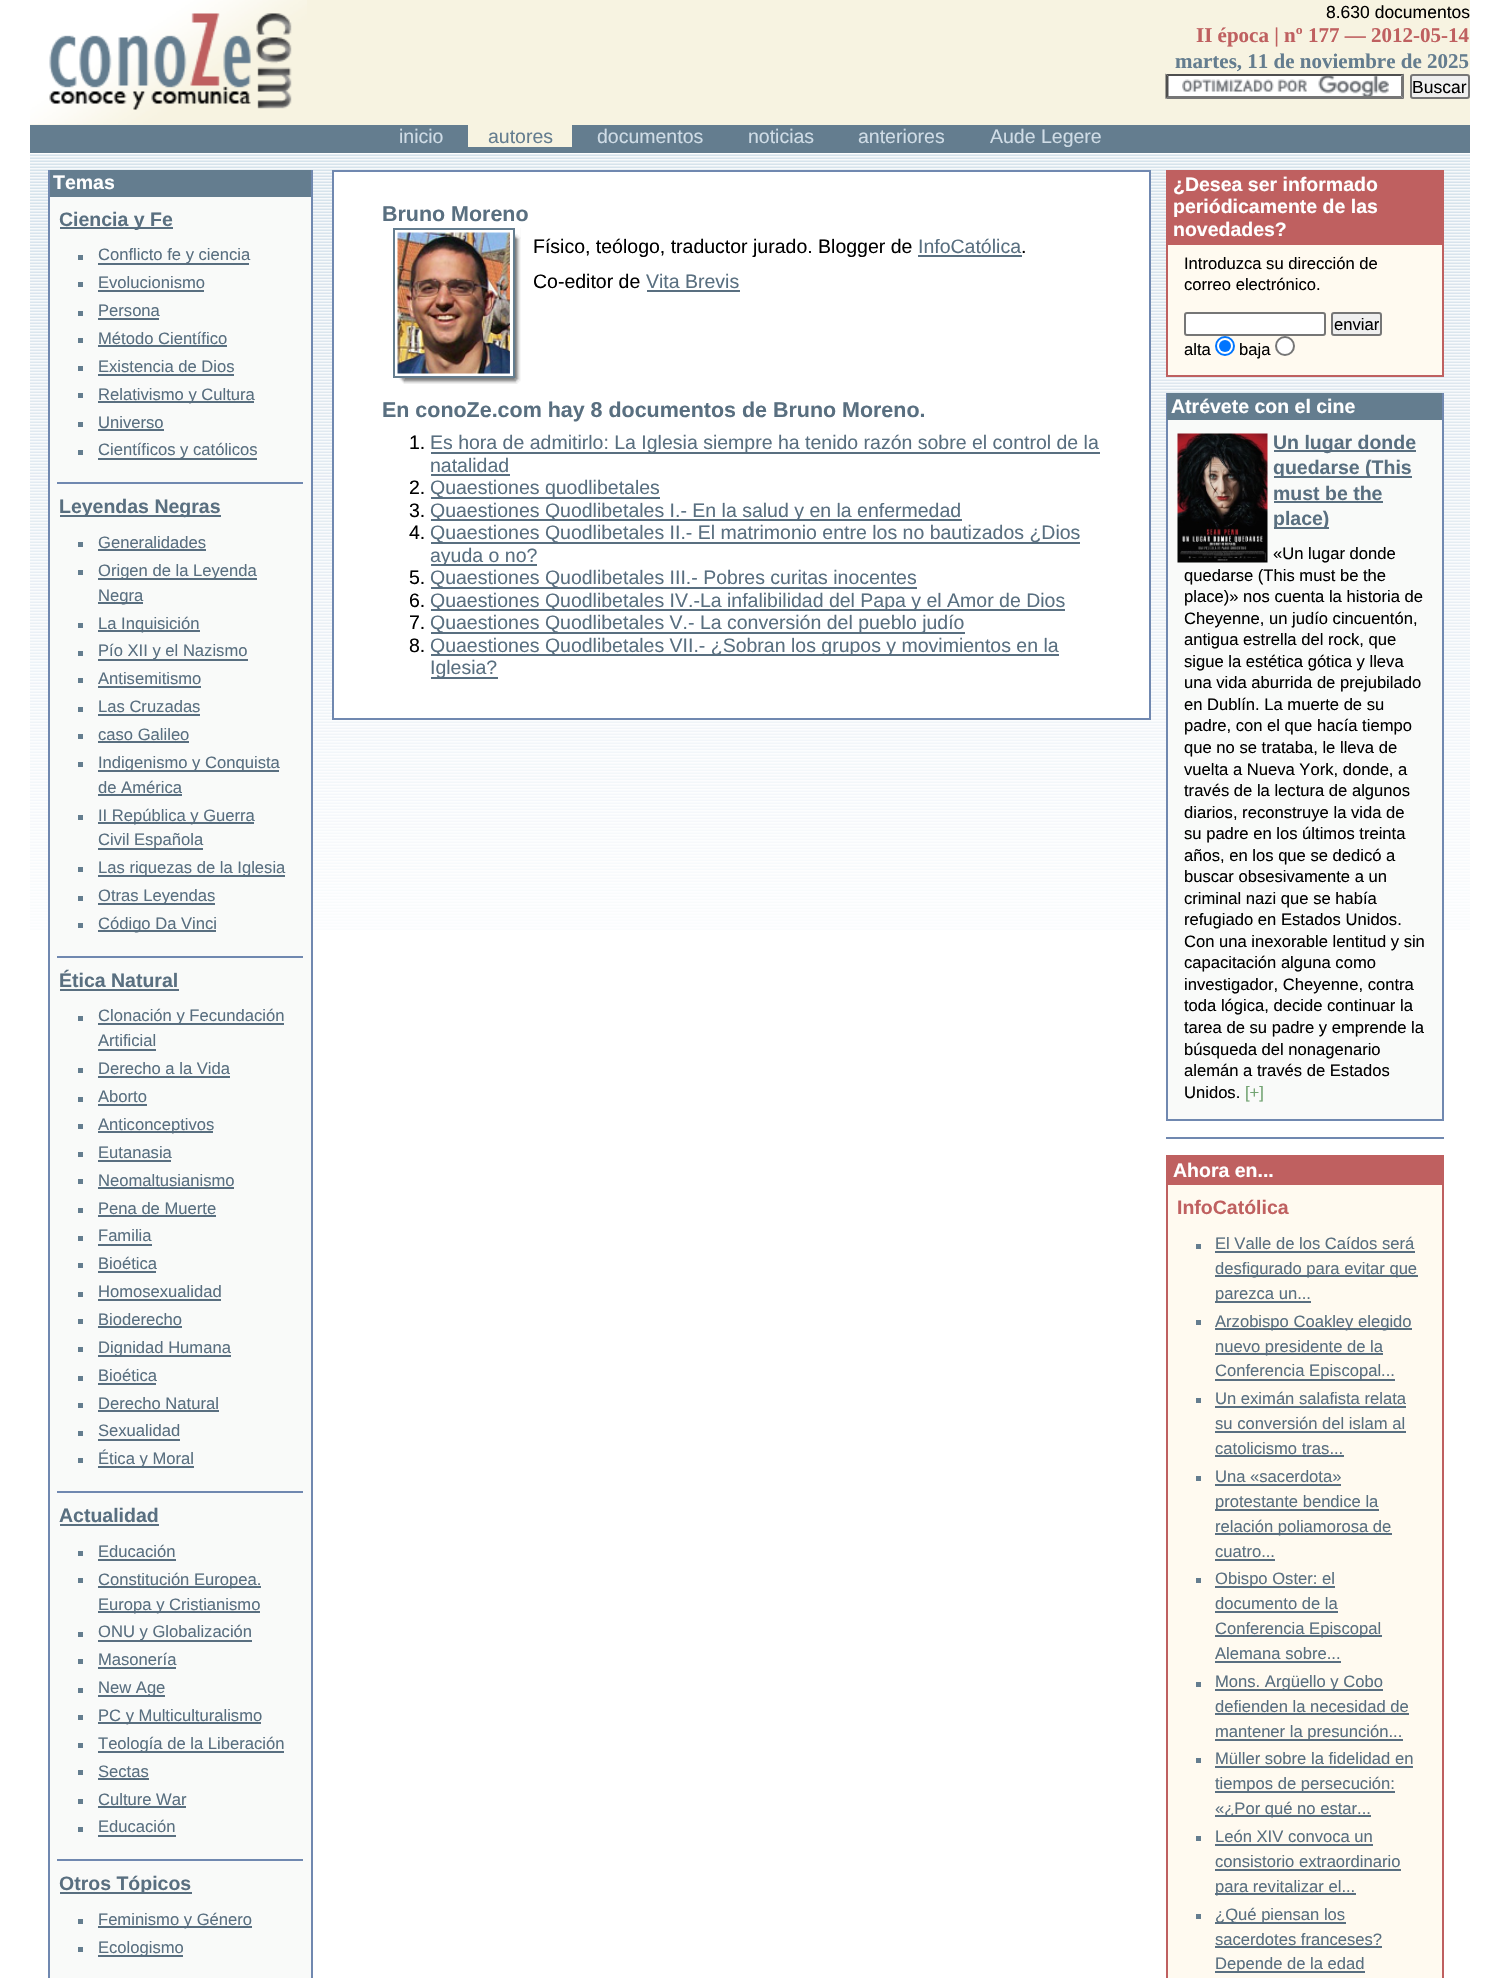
void draw(SkCanvas* canvas) {
	SkPaint fill;
	fill.setAntiAlias(true);
	auto makeFont = [&](const char* family, int weight, float size, bool italic = false) {
		SkFontStyle style(weight, SkFontStyle::kNormal_Width,
			italic ? SkFontStyle::kItalic_Slant : SkFontStyle::kUpright_Slant);
		SkFont result(fontMgr->matchFamilyStyle(family, style), size);
		result.setSubpixel(true);
		return result;
	};
	auto text = [&](const char* s, float x, float y, const SkFont& font) {
		canvas->drawString(s, x, y, font, fill);
	};
	auto box = [&](float l, float t, float r, float b) {
		canvas->drawRect(SkRect::MakeLTRB(l, t, r, b), fill);
	};
	auto picture = [&](const char* path, float l, float t, float r, float b) {
		auto image = SkImages::DeferredFromEncodedData(SkData::MakeFromFileName(path));
		canvas->drawImageRect(image, SkRect::MakeLTRB(l, t, r, b), SkSamplingOptions());
	};
	canvas->clear(0xFFFFFFFF);
	fill.setColor(0xFFF7F3E1);
	box(30, 0, 1470, 125);
	picture("image0.png", 30, 0, 307, 125);
	fill.setColor(0xFFFFFFFF);
	box(1166, 74, 1404, 99);
	picture("image1.png", 1182, 76, 1389, 96);
	fill.setColor(0xFF4F4F4F);
	canvas->drawPath(SkPathBuilder().moveTo(1166, 74).lineTo(1404, 74).lineTo(1401, 76).lineTo(1168, 76).close().detach(), fill);
	fill.setColor(0xFF767676);
	canvas->drawPath(SkPathBuilder().moveTo(1404, 73.5f).lineTo(1404, 99).lineTo(1401, 96).lineTo(1401, 76.5f).close().detach(), fill);
	canvas->drawPath(SkPathBuilder().moveTo(1404, 99).lineTo(1166, 99).lineTo(1168, 96).lineTo(1401, 96).close().detach(), fill);
	fill.setColor(0xFF4F4F4F);
	canvas->drawPath(SkPathBuilder().moveTo(1165.5f, 99).lineTo(1165.5f, 73.5f).lineTo(1168.5f, 76.5f).lineTo(1168.5f, 96).close().detach(), fill);
	fill.setColor(0xFFEFEFEF);
	canvas->drawRoundRect(SkRect::MakeLTRB(1411, 75, 1469, 98), 2, 2, fill);
	fill.setStyle(SkPaint::kStroke_Style);
	fill.setStrokeWidth(2);
	fill.setColor(0xFF767676);
	canvas->drawRoundRect(SkRect::MakeLTRB(1411, 75, 1469, 98), 2, 2, fill);
	fill.setStyle(SkPaint::kFill_Style);
	fill.setColor(0xFF647D8F);
	box(30, 125, 1470, 153);
	fill.setColor(0xFFF7F3E1);
	box(468, 125, 572, 147);
	picture("image2.png", 30, 154, 1470, 930);
	fill.setColor(0xFFF9FAF9);
	box(50, 197, 311, 1978);
	fill.setColor(0xFF7088B0);
	box(311, 170, 313, 1978);
	box(48, 170, 50, 1978);
	fill.setColor(0xFF647D8F);
	box(50, 170, 311, 197);
	fill.setColor(0xFF596F80);
	box(60, 227, 173, 229);
	fill.setColor(0xFF7088B0);
	box(57, 482, 303, 484);
	fill.setColor(0xFF647D8F);
	box(78, 255, 83, 260);
	fill.setColor(0xFF596F80);
	box(98, 263, 249, 265);
	fill.setColor(0xFF647D8F);
	box(78, 282, 83, 287);
	fill.setColor(0xFF596F80);
	box(98, 290, 204, 292);
	fill.setColor(0xFF647D8F);
	box(78, 311, 83, 316);
	fill.setColor(0xFF596F80);
	box(98, 318, 159, 320);
	fill.setColor(0xFF647D8F);
	box(78, 338, 83, 343);
	fill.setColor(0xFF596F80);
	box(98, 345, 227, 347);
	fill.setColor(0xFF647D8F);
	box(78, 366, 83, 371);
	fill.setColor(0xFF596F80);
	box(98, 374, 234, 376);
	fill.setColor(0xFF647D8F);
	box(78, 393, 83, 398);
	fill.setColor(0xFF596F80);
	box(98, 401, 254, 403);
	fill.setColor(0xFF647D8F);
	box(78, 422, 83, 427);
	fill.setColor(0xFF596F80);
	box(98, 429, 164, 431);
	fill.setColor(0xFF647D8F);
	box(78, 450, 83, 455);
	fill.setColor(0xFF596F80);
	box(98, 458, 257, 460);
	box(60, 515, 221, 517);
	fill.setColor(0xFF7088B0);
	box(57, 956, 303, 958);
	fill.setColor(0xFF647D8F);
	box(78, 542, 83, 547);
	fill.setColor(0xFF596F80);
	box(98, 549, 206, 551);
	fill.setColor(0xFF647D8F);
	box(78, 570, 83, 575);
	fill.setColor(0xFF596F80);
	box(98, 578, 257, 580);
	box(98, 602, 143, 604);
	fill.setColor(0xFF647D8F);
	box(78, 623, 83, 628);
	fill.setColor(0xFF596F80);
	box(98, 630, 200, 632);
	fill.setColor(0xFF647D8F);
	box(78, 651, 83, 656);
	fill.setColor(0xFF596F80);
	box(98, 659, 248, 661);
	fill.setColor(0xFF647D8F);
	box(78, 678, 83, 683);
	fill.setColor(0xFF596F80);
	box(98, 686, 201, 688);
	fill.setColor(0xFF647D8F);
	box(78, 707, 83, 712);
	fill.setColor(0xFF596F80);
	box(98, 714, 200, 716);
	fill.setColor(0xFF647D8F);
	box(78, 734, 83, 739);
	fill.setColor(0xFF596F80);
	box(98, 741, 189, 743);
	fill.setColor(0xFF647D8F);
	box(78, 762, 83, 767);
	fill.setColor(0xFF596F80);
	box(98, 770, 279, 772);
	box(98, 794, 182, 796);
	fill.setColor(0xFF647D8F);
	box(78, 815, 83, 820);
	fill.setColor(0xFF596F80);
	box(98, 822, 254, 824);
	box(98, 848, 203, 850);
	fill.setColor(0xFF647D8F);
	box(78, 867, 83, 872);
	fill.setColor(0xFF596F80);
	box(98, 875, 285, 877);
	fill.setColor(0xFF647D8F);
	box(78, 896, 83, 901);
	fill.setColor(0xFF596F80);
	box(98, 903, 215, 905);
	fill.setColor(0xFF647D8F);
	box(78, 923, 83, 928);
	fill.setColor(0xFF596F80);
	box(98, 930, 216, 932);
	box(60, 989, 179, 991);
	fill.setColor(0xFF7088B0);
	box(57, 1491, 303, 1493);
	fill.setColor(0xFF647D8F);
	box(78, 1016, 83, 1021);
	fill.setColor(0xFF596F80);
	box(98, 1023, 284, 1025);
	box(98, 1049, 156, 1051);
	fill.setColor(0xFF647D8F);
	box(78, 1068, 83, 1073);
	fill.setColor(0xFF596F80);
	box(98, 1076, 230, 1078);
	fill.setColor(0xFF647D8F);
	box(78, 1097, 83, 1102);
	fill.setColor(0xFF596F80);
	box(98, 1104, 147, 1106);
	fill.setColor(0xFF647D8F);
	box(78, 1124, 83, 1129);
	fill.setColor(0xFF596F80);
	box(98, 1131, 213, 1133);
	fill.setColor(0xFF647D8F);
	box(78, 1152, 83, 1157);
	fill.setColor(0xFF596F80);
	box(98, 1160, 171, 1162);
	fill.setColor(0xFF647D8F);
	box(78, 1179, 83, 1184);
	fill.setColor(0xFF596F80);
	box(98, 1187, 234, 1189);
	fill.setColor(0xFF647D8F);
	box(78, 1208, 83, 1213);
	fill.setColor(0xFF596F80);
	box(98, 1215, 216, 1217);
	fill.setColor(0xFF647D8F);
	box(78, 1236, 83, 1241);
	fill.setColor(0xFF596F80);
	box(98, 1244, 152, 1246);
	fill.setColor(0xFF647D8F);
	box(78, 1263, 83, 1268);
	fill.setColor(0xFF596F80);
	box(98, 1271, 156, 1273);
	fill.setColor(0xFF647D8F);
	box(78, 1292, 83, 1297);
	fill.setColor(0xFF596F80);
	box(98, 1299, 221, 1301);
	fill.setColor(0xFF647D8F);
	box(78, 1319, 83, 1324);
	fill.setColor(0xFF596F80);
	box(98, 1326, 182, 1328);
	fill.setColor(0xFF647D8F);
	box(78, 1347, 83, 1352);
	fill.setColor(0xFF596F80);
	box(98, 1355, 231, 1357);
	fill.setColor(0xFF647D8F);
	box(78, 1376, 83, 1381);
	fill.setColor(0xFF596F80);
	box(98, 1383, 156, 1385);
	fill.setColor(0xFF647D8F);
	box(78, 1403, 83, 1408);
	fill.setColor(0xFF596F80);
	box(98, 1410, 219, 1412);
	fill.setColor(0xFF647D8F);
	box(78, 1431, 83, 1436);
	fill.setColor(0xFF596F80);
	box(98, 1439, 180, 1441);
	fill.setColor(0xFF647D8F);
	box(78, 1458, 83, 1463);
	fill.setColor(0xFF596F80);
	box(98, 1466, 194, 1468);
	box(60, 1524, 159, 1526);
	fill.setColor(0xFF7088B0);
	box(57, 1859, 303, 1861);
	fill.setColor(0xFF647D8F);
	box(78, 1551, 83, 1556);
	fill.setColor(0xFF596F80);
	box(98, 1559, 176, 1561);
	fill.setColor(0xFF647D8F);
	box(78, 1578, 83, 1583);
	fill.setColor(0xFF596F80);
	box(98, 1586, 261, 1588);
	box(98, 1611, 260, 1613);
	fill.setColor(0xFF647D8F);
	box(78, 1632, 83, 1637);
	fill.setColor(0xFF596F80);
	box(98, 1640, 252, 1642);
	fill.setColor(0xFF647D8F);
	box(78, 1659, 83, 1664);
	fill.setColor(0xFF596F80);
	box(98, 1667, 176, 1669);
	fill.setColor(0xFF647D8F);
	box(78, 1688, 83, 1693);
	fill.setColor(0xFF596F80);
	box(98, 1695, 165, 1697);
	fill.setColor(0xFF647D8F);
	box(78, 1715, 83, 1720);
	fill.setColor(0xFF596F80);
	box(98, 1722, 261, 1724);
	fill.setColor(0xFF647D8F);
	box(78, 1743, 83, 1748);
	fill.setColor(0xFF596F80);
	box(98, 1751, 284, 1753);
	fill.setColor(0xFF647D8F);
	box(78, 1770, 83, 1775);
	fill.setColor(0xFF596F80);
	box(98, 1778, 149, 1780);
	fill.setColor(0xFF647D8F);
	box(78, 1799, 83, 1804);
	fill.setColor(0xFF596F80);
	box(98, 1806, 186, 1808);
	fill.setColor(0xFF647D8F);
	box(78, 1827, 83, 1832);
	fill.setColor(0xFF596F80);
	box(98, 1835, 176, 1837);
	box(60, 1892, 192, 1894);
	fill.setColor(0xFF647D8F);
	box(78, 1919, 83, 1924);
	fill.setColor(0xFF596F80);
	box(98, 1926, 252, 1928);
	fill.setColor(0xFF647D8F);
	box(78, 1947, 83, 1952);
	fill.setColor(0xFF596F80);
	box(98, 1955, 183, 1957);
	fill.setColor(0xFFFFFFFF);
	canvas->drawRect(SkRect::MakeLTRB(333, 171, 1150, 719), fill);
	fill.setStyle(SkPaint::kStroke_Style);
	fill.setColor(0xFF7088B0);
	canvas->drawRect(SkRect::MakeLTRB(333, 171, 1150, 719), fill);
	picture("image3.png", 405, 228, 521, 384);
	picture("image4.png", 393, 378, 405, 384);
	picture("image5.png", 515, 228, 521, 239);
	fill.setStyle(SkPaint::kFill_Style);
	fill.setColor(0xFFFFFFFF);
	box(405, 230, 513, 376);
	fill.setStyle(SkPaint::kStroke_Style);
	fill.setColor(0xFF647D8F);
	canvas->drawRect(SkRect::MakeLTRB(394, 229, 514, 377), fill);
	picture("image6.png", 397, 232, 510, 374);
	fill.setStyle(SkPaint::kFill_Style);
	fill.setColor(0xFF596F80);
	box(918, 255, 1022, 257);
	box(647, 290, 740, 292);
	box(431, 452, 1100, 454);
	box(431, 474, 510, 476);
	box(431, 497, 660, 499);
	box(431, 519, 962, 521);
	box(431, 542, 1080, 544);
	box(431, 564, 537, 566);
	box(431, 587, 917, 589);
	box(431, 609, 1065, 611);
	box(431, 632, 965, 634);
	box(431, 654, 1059, 656);
	box(431, 677, 498, 679);
	fill.setColor(0xFFFFFAF0);
	box(1168, 245, 1442, 375);
	fill.setColor(0xFFBF6060);
	box(1442, 170, 1444, 377);
	box(1166, 375, 1443, 377);
	box(1166, 170, 1168, 377);
	box(1168, 170, 1442, 245);
	fill.setColor(0xFFFFFFFF);
	canvas->drawRoundRect(SkRect::MakeLTRB(1185, 313, 1325, 335), 2, 2, fill);
	fill.setStyle(SkPaint::kStroke_Style);
	fill.setColor(0xFF767676);
	canvas->drawRoundRect(SkRect::MakeLTRB(1185, 313, 1325, 335), 2, 2, fill);
	fill.setStyle(SkPaint::kFill_Style);
	fill.setColor(0xFFEFEFEF);
	canvas->drawRoundRect(SkRect::MakeLTRB(1332, 313, 1381, 335), 2, 2, fill);
	fill.setStyle(SkPaint::kStroke_Style);
	fill.setColor(0xFF767676);
	canvas->drawRoundRect(SkRect::MakeLTRB(1332, 313, 1381, 335), 2, 2, fill);
	fill.setStyle(SkPaint::kFill_Style);
	fill.setColor(0xFFFFFFFF);
	canvas->drawCircle(1225, 346, 9, fill);
	fill.setStyle(SkPaint::kStroke_Style);
	fill.setColor(0xFF0075FF);
	canvas->drawCircle(1225, 346, 9, fill);
	fill.setStyle(SkPaint::kFill_Style);
	canvas->drawCircle(1225, 346, 6, fill);
	fill.setColor(0xFFFFFFFF);
	canvas->drawCircle(1285, 346, 9, fill);
	fill.setStyle(SkPaint::kStroke_Style);
	fill.setColor(0xFF767676);
	canvas->drawCircle(1285, 346, 9, fill);
	fill.setStyle(SkPaint::kFill_Style);
	fill.setColor(0xFFF9FAF9);
	box(1168, 420, 1442, 1119);
	fill.setColor(0xFF7088B0);
	box(1442, 393, 1444, 1121);
	box(1166, 1119, 1443, 1121);
	box(1166, 393, 1168, 1121);
	fill.setColor(0xFF647D8F);
	box(1167, 393, 1442, 420);
	picture("image7.png", 1177, 433, 1268, 563);
	fill.setColor(0xFF596F80);
	box(1274, 450, 1416, 452);
	box(1274, 476, 1412, 478);
	box(1274, 501, 1383, 503);
	box(1274, 527, 1329, 529);
	fill.setColor(0xFF7088B0);
	box(1166, 1137, 1444, 1139);
	fill.setColor(0xFFFFFAF0);
	box(1168, 1185, 1442, 1978);
	fill.setColor(0xFFBF6060);
	box(1442, 1155, 1444, 1978);
	box(1166, 1155, 1168, 1978);
	box(1168, 1155, 1442, 1185);
	fill.setColor(0xFF647D8F);
	box(1196, 1244, 1201, 1249);
	fill.setColor(0xFF596F80);
	box(1215, 1251, 1415, 1253);
	box(1215, 1275, 1418, 1277);
	box(1215, 1301, 1311, 1303);
	fill.setColor(0xFF647D8F);
	box(1196, 1320, 1201, 1325);
	fill.setColor(0xFF596F80);
	box(1215, 1328, 1412, 1330);
	box(1215, 1353, 1383, 1355);
	box(1215, 1379, 1395, 1381);
	fill.setColor(0xFF647D8F);
	box(1196, 1398, 1201, 1403);
	fill.setColor(0xFF596F80);
	box(1215, 1406, 1406, 1408);
	box(1215, 1431, 1406, 1433);
	box(1215, 1455, 1344, 1457);
	fill.setColor(0xFF647D8F);
	box(1196, 1476, 1201, 1481);
	fill.setColor(0xFF596F80);
	box(1215, 1484, 1341, 1486);
	box(1215, 1509, 1379, 1511);
	box(1215, 1533, 1392, 1535);
	box(1215, 1559, 1275, 1561);
	fill.setColor(0xFF647D8F);
	box(1196, 1578, 1201, 1583);
	fill.setColor(0xFF596F80);
	box(1215, 1586, 1335, 1588);
	box(1215, 1611, 1338, 1613);
	box(1215, 1635, 1382, 1637);
	box(1215, 1661, 1341, 1663);
	fill.setColor(0xFF647D8F);
	box(1196, 1682, 1201, 1687);
	fill.setColor(0xFF596F80);
	box(1215, 1689, 1383, 1691);
	box(1215, 1713, 1409, 1715);
	box(1215, 1739, 1403, 1741);
	fill.setColor(0xFF647D8F);
	box(1196, 1758, 1201, 1763);
	fill.setColor(0xFF596F80);
	box(1215, 1766, 1413, 1768);
	box(1215, 1791, 1395, 1793);
	box(1215, 1815, 1371, 1817);
	fill.setColor(0xFF647D8F);
	box(1196, 1836, 1201, 1841);
	fill.setColor(0xFF596F80);
	box(1215, 1844, 1373, 1846);
	box(1215, 1869, 1401, 1871);
	box(1215, 1893, 1356, 1895);
	fill.setColor(0xFF647D8F);
	box(1196, 1914, 1201, 1919);
	fill.setColor(0xFF596F80);
	box(1215, 1922, 1346, 1924);
	box(1215, 1946, 1382, 1948);
	box(1215, 1971, 1365, 1973);
	auto font1 = makeFont("Liberation Sans", 400, 17.5f);
	fill.setColor(0xFF000000);
	text("8.630 documentos", 1326, 18, font1);
	auto font2 = makeFont("Liberation Serif", 700, 21);
	fill.setColor(0xFFBF6060);
	text("II época | nº 177 — 2012-05-14", 1196, 42, font2);
	fill.setColor(0xFF647D8F);
	text("martes, 11 de noviembre de 2025", 1175, 68, font2);
	fill.setColor(0xFF000000);
	text("Buscar", 1412, 93, font1);
	auto font3 = makeFont("Liberation Sans", 400, 19.5f);
	fill.setColor(0xFFCFDCE6);
	text("inicio", 399, 143, font3);
	fill.setColor(0xFF647D8F);
	text("autores", 488, 143, font3);
	fill.setColor(0xFFCFDCE6);
	text("documentos", 597, 143, font3);
	text("noticias", 748, 143, font3);
	text("anteriores", 858, 143, font3);
	text("Aude Legere", 990, 143, font3);
	auto font4 = makeFont("Liberation Sans", 700, 19.5f);
	fill.setColor(0xFFFFFFFF);
	text("Temas", 53, 189, font4);
	fill.setColor(0xFF596F80);
	text("Ciencia y Fe", 59, 226, font4);
	auto font5 = makeFont("Liberation Sans", 400, 16.6f);
	text("Conflicto fe y ciencia", 98, 260, font5);
	text("Evolucionismo", 98, 288, font5);
	text("Persona", 98, 316, font5);
	text("Método Científico", 98, 344, font5);
	text("Existencia de Dios", 98, 372, font5);
	text("Relativismo y Cultura", 98, 400, font5);
	text("Universo", 98, 428, font5);
	text("Científicos y católicos", 98, 455, font5);
	text("Leyendas Negras", 59, 513, font4);
	text("Generalidades", 98, 548, font5);
	text("Origen de la Leyenda", 98, 576, font5);
	text("Negra", 98, 601, font5);
	text("La Inquisición", 98, 629, font5);
	text("Pío XII y el Nazismo", 98, 656, font5);
	text("Antisemitismo", 98, 684, font5);
	text("Las Cruzadas", 98, 712, font5);
	text("caso Galileo", 98, 740, font5);
	text("Indigenismo y Conquista", 98, 768, font5);
	text("de América", 98, 793, font5);
	text("II República y Guerra", 98, 821, font5);
	text("Civil Española", 98, 845, font5);
	text("Las riquezas de la Iglesia", 98, 873, font5);
	text("Otras Leyendas", 98, 901, font5);
	text("Código Da Vinci", 98, 929, font5);
	text("Ética Natural", 59, 987, font4);
	text("Clonación y Fecundación", 98, 1021, font5);
	text("Artificial", 98, 1046, font5);
	text("Derecho a la Vida", 98, 1074, font5);
	text("Aborto", 98, 1102, font5);
	text("Anticonceptivos", 98, 1130, font5);
	text("Eutanasia", 98, 1158, font5);
	text("Neomaltusianismo", 98, 1186, font5);
	text("Pena de Muerte", 98, 1214, font5);
	text("Familia", 98, 1241, font5);
	text("Bioética", 98, 1269, font5);
	text("Homosexualidad", 98, 1297, font5);
	text("Bioderecho", 98, 1325, font5);
	text("Dignidad Humana", 98, 1353, font5);
	text("Bioética", 98, 1381, font5);
	text("Derecho Natural", 98, 1409, font5);
	text("Sexualidad", 98, 1436, font5);
	text("Ética y Moral", 98, 1464, font5);
	text("Actualidad", 59, 1522, font4);
	text("Educación", 98, 1557, font5);
	text("Constitución Europea.", 98, 1585, font5);
	text("Europa y Cristianismo", 98, 1610, font5);
	text("ONU y Globalización", 98, 1637, font5);
	text("Masonería", 98, 1665, font5);
	text("New Age", 98, 1693, font5);
	text("PC y Multiculturalismo", 98, 1721, font5);
	text("Teología de la Liberación", 98, 1749, font5);
	text("Sectas", 98, 1777, font5);
	text("Culture War", 98, 1805, font5);
	text("Educación", 98, 1832, font5);
	text("Otros Tópicos", 59, 1890, font4);
	text("Feminismo y Género", 98, 1925, font5);
	text("Ecologismo", 98, 1953, font5);
	auto font6 = makeFont("Liberation Sans", 700, 21.45f);
	text("Bruno Moreno", 382, 221, font6);
	fill.setColor(0xFF000000);
	text("Físico, teólogo, traductor jurado. Blogger de", 533, 253, font3);
	fill.setColor(0xFF596F80);
	text("InfoCatólica", 918, 253, font3);
	fill.setColor(0xFF000000);
	text(".", 1021, 253, font3);
	text("Co-editor de", 533, 288, font3);
	fill.setColor(0xFF596F80);
	text("Vita Brevis", 646, 288, font3);
	text("En conoZe.com hay 8 documentos de Bruno Moreno.", 382, 417, font6);
	fill.setColor(0xFF000000);
	text("1.", 409, 449, font3);
	fill.setColor(0xFF596F80);
	text("Es hora de admitirlo: La Iglesia siempre ha tenido razón sobre el control de la", 430, 449, font3);
	text("natalidad", 430, 472, font3);
	fill.setColor(0xFF000000);
	text("2.", 409, 494, font3);
	fill.setColor(0xFF596F80);
	text("Quaestiones quodlibetales", 430, 494, font3);
	fill.setColor(0xFF000000);
	text("3.", 409, 517, font3);
	fill.setColor(0xFF596F80);
	text("Quaestiones Quodlibetales I.- En la salud y en la enfermedad", 430, 517, font3);
	fill.setColor(0xFF000000);
	text("4.", 409, 539, font3);
	fill.setColor(0xFF596F80);
	text("Quaestiones Quodlibetales II.- El matrimonio entre los no bautizados ¿Dios", 430, 539, font3);
	text("ayuda o no?", 430, 562, font3);
	fill.setColor(0xFF000000);
	text("5.", 409, 584, font3);
	fill.setColor(0xFF596F80);
	text("Quaestiones Quodlibetales III.- Pobres curitas inocentes", 430, 584, font3);
	fill.setColor(0xFF000000);
	text("6.", 409, 607, font3);
	fill.setColor(0xFF596F80);
	text("Quaestiones Quodlibetales IV.-La infalibilidad del Papa y el Amor de Dios", 430, 607, font3);
	fill.setColor(0xFF000000);
	text("7.", 409, 629, font3);
	fill.setColor(0xFF596F80);
	text("Quaestiones Quodlibetales V.- La conversión del pueblo judío", 430, 629, font3);
	fill.setColor(0xFF000000);
	text("8.", 409, 652, font3);
	fill.setColor(0xFF596F80);
	text("Quaestiones Quodlibetales VII.- ¿Sobran los grupos y movimientos en la", 430, 652, font3);
	text("Iglesia?", 430, 674, font3);
	fill.setColor(0xFFFFFFFF);
	text("¿Desea ser informado", 1173, 191, font4);
	text("periódicamente de las", 1173, 213, font4);
	text("novedades?", 1173, 236, font4);
	fill.setColor(0xFF000000);
	text("Introduzca su dirección de", 1184, 269, font5);
	text("correo electrónico.", 1184, 290, font5);
	text("enviar", 1334, 330, font5);
	text("alta", 1184, 355, font5);
	text("baja", 1239, 355, font5);
	fill.setColor(0xFFFFFFFF);
	text("Atrévete con el cine", 1171, 413, font4);
	fill.setColor(0xFF596F80);
	text("Un lugar donde", 1273, 449, font4);
	text("quedarse (This", 1273, 474, font4);
	text("must be the", 1273, 500, font4);
	text("place)", 1273, 525, font4);
	fill.setColor(0xFF000000);
	text("«Un lugar donde", 1273, 559, font5);
	text("quedarse (This must be the", 1184, 581, font5);
	text("place)» nos cuenta la historia de", 1184, 602, font5);
	text("Cheyenne, un judío cincuentón,", 1184, 624, font5);
	text("antigua estrella del rock, que", 1184, 645, font5);
	text("sigue la estética gótica y lleva", 1184, 667, font5);
	text("una vida aburrida de prejubilado", 1184, 688, font5);
	text("en Dublín. La muerte de su", 1184, 710, font5);
	text("padre, con el que hacía tiempo", 1184, 731, font5);
	text("que no se trataba, le lleva de", 1184, 753, font5);
	text("vuelta a Nueva York, donde, a", 1184, 775, font5);
	text("través de la lectura de algunos", 1184, 796, font5);
	text("diarios, reconstruye la vida de", 1184, 818, font5);
	text("su padre en los últimos treinta", 1184, 839, font5);
	text("años, en los que se dedicó a", 1184, 861, font5);
	text("buscar obsesivamente a un", 1184, 882, font5);
	text("criminal nazi que se había", 1184, 904, font5);
	text("refugiado en Estados Unidos.", 1184, 925, font5);
	text("Con una inexorable lentitud y sin", 1184, 947, font5);
	text("capacitación alguna como", 1184, 968, font5);
	text("investigador, Cheyenne, contra", 1184, 990, font5);
	text("toda lógica, decide continuar la", 1184, 1011, font5);
	text("tarea de su padre y emprende la", 1184, 1033, font5);
	text("búsqueda del nonagenario", 1184, 1055, font5);
	text("alemán a través de Estados", 1184, 1076, font5);
	text("Unidos.", 1184, 1098, font5);
	fill.setColor(0xFF72A372);
	text("[+]", 1245, 1098, font5);
	fill.setColor(0xFFFFFFFF);
	text("Ahora en...", 1173, 1177, font4);
	fill.setColor(0xFFBF6060);
	text("InfoCatólica", 1177, 1214, font4);
	fill.setColor(0xFF596F80);
	text("El Valle de los Caídos será", 1215, 1249, font5);
	text("desfigurado para evitar que", 1215, 1274, font5);
	text("parezca un...", 1215, 1299, font5);
	text("Arzobispo Coakley elegido", 1215, 1327, font5);
	text("nuevo presidente de la", 1215, 1352, font5);
	text("Conferencia Episcopal...", 1215, 1376, font5);
	text("Un eximán salafista relata", 1215, 1404, font5);
	text("su conversión del islam al", 1215, 1429, font5);
	text("catolicismo tras...", 1215, 1454, font5);
	text("Una «sacerdota»", 1215, 1482, font5);
	text("protestante bendice la", 1215, 1507, font5);
	text("relación poliamorosa de", 1215, 1532, font5);
	text("cuatro...", 1215, 1557, font5);
	text("Obispo Oster: el", 1215, 1584, font5);
	text("documento de la", 1215, 1609, font5);
	text("Conferencia Episcopal", 1215, 1634, font5);
	text("Alemana sobre...", 1215, 1659, font5);
	text("Mons. Argüello y Cobo", 1215, 1687, font5);
	text("defienden la necesidad de", 1215, 1712, font5);
	text("mantener la presunción...", 1215, 1737, font5);
	text("Müller sobre la fidelidad en", 1215, 1764, font5);
	text("tiempos de persecución:", 1215, 1789, font5);
	text("«¿Por qué no estar...", 1215, 1814, font5);
	text("León XIV convoca un", 1215, 1842, font5);
	text("consistorio extraordinario", 1215, 1867, font5);
	text("para revitalizar el...", 1215, 1892, font5);
	text("¿Qué piensan los", 1215, 1920, font5);
	text("sacerdotes franceses?", 1215, 1945, font5);
	text("Depende de la edad", 1215, 1969, font5);
}
